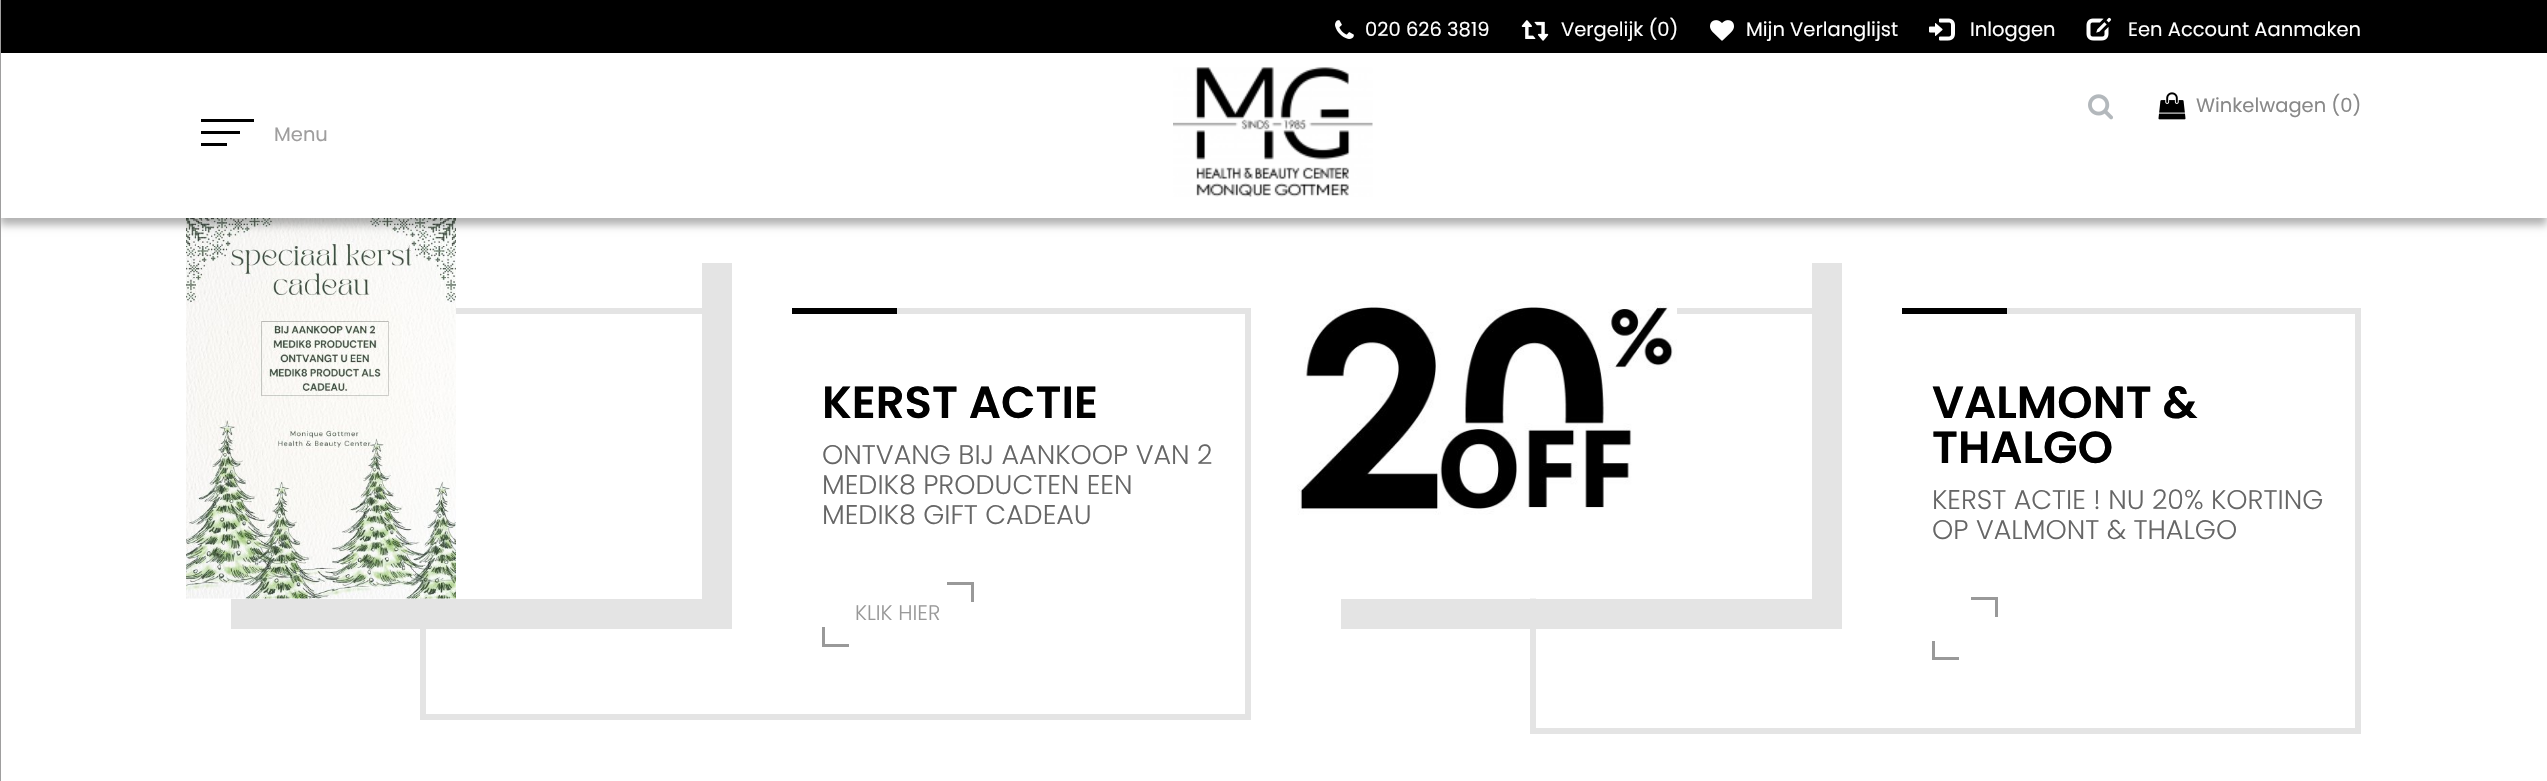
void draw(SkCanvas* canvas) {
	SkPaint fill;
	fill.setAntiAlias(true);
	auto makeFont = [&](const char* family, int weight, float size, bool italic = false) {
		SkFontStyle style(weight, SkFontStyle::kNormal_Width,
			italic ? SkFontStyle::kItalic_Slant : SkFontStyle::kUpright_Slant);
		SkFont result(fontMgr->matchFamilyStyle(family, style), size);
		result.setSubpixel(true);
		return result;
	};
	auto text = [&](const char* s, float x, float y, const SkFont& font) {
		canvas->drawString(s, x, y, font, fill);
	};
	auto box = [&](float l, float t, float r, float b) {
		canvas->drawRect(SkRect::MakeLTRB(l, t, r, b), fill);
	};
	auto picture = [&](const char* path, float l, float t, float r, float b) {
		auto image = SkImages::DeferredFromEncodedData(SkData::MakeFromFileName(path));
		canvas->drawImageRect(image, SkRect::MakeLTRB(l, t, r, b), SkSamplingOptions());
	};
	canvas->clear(0xFFFFFFFF);
	fill.setColor(0xFF000000);
	box(1, 0, 2547, 53);
	fill.setStyle(SkPaint::kStroke_Style);
	fill.setStrokeWidth(6);
	fill.setColor(0xFFE4E4E4);
	canvas->drawRect(SkRect::MakeLTRB(423, 311, 1248, 717), fill);
	picture("image9.png", 186, 218, 456, 599);
	fill.setStyle(SkPaint::kFill_Style);
	fill.setColor(0x4D000000);
	fill.setMaskFilter(SkMaskFilter::MakeBlur(kNormal_SkBlurStyle, 4));
	canvas->drawRect(SkRect::MakeLTRB(0, 60, 2547, 225), fill);
	fill.setMaskFilter(nullptr);
	fill.setColor(0xFF9F9E9E);
	box(0, 0, 1, 781);
	picture("image0.png", 1335, 20, 1354, 39);
	picture("image1.png", 1521, 20, 1536, 39);
	picture("image2.png", 1534, 21, 1549, 41);
	picture("image3.png", 1710, 20, 1734, 41);
	picture("image4.png", 1929, 18, 1955, 41);
	picture("image5.png", 2086, 17, 2112, 41);
	fill.setColor(0xFFFFFFFF);
	box(1, 53, 2547, 218);
	picture("image6.png", 1173, 67, 1373, 197);
	picture("image7.png", 2088, 94, 2113, 120);
	picture("image8.png", 2158, 92, 2186, 120);
	fill.setColor(0xFF000000);
	box(201, 119, 254, 122);
	box(201, 131, 240, 134);
	box(201, 143, 227, 146);
	fill.setColor(0xFFE4E4E4);
	box(702, 263, 732, 599);
	box(231, 599, 732, 629);
	fill.setColor(0xFFFFFFFF);
	box(732, 308, 792, 314);
	fill.setColor(0xFF000000);
	box(792, 308, 897, 314);
	fill.setColor(0xFF999999);
	box(947, 582, 974, 585);
	box(971, 582, 974, 602);
	box(822, 644, 849, 647);
	box(822, 627, 825, 647);
	fill.setStyle(SkPaint::kStroke_Style);
	fill.setColor(0xFFE4E4E4);
	canvas->drawRect(SkRect::MakeLTRB(1533, 311, 2358, 731), fill);
	fill.setStyle(SkPaint::kFill_Style);
	box(1812, 263, 1842, 599);
	box(1341, 599, 1842, 629);
	picture("image10.png", 1297, 301, 1677, 599);
	fill.setColor(0xFFFFFFFF);
	box(1842, 308, 1902, 314);
	fill.setColor(0xFF000000);
	box(1902, 308, 2007, 314);
	fill.setColor(0xFF999999);
	box(1971, 597, 1998, 600);
	box(1995, 597, 1998, 617);
	box(1932, 657, 1959, 660);
	box(1932, 641, 1935, 660);
	auto font1 = makeFont("Poppins", 400, 19.5f);
	fill.setColor(0xFFFFFFFF);
	text("020 626 3819", 1365, 36, font1);
	text("Vergelijk (0)", 1561, 36, font1);
	text("Mijn Verlanglijst", 1746, 36, font1);
	text("Inloggen", 1970, 36, font1);
	text("Een Account Aanmaken", 2128, 36, font1);
	fill.setColor(0xFF888888);
	text("Winkelwagen (0)", 2196, 112, font1);
	fill.setColor(0xFF9F9E9E);
	text("Menu", 274, 141, font1);
	auto font2 = makeFont("Poppins", 600, 45);
	fill.setColor(0xFF000000);
	text("KERST ACTIE", 822, 418, font2);
	auto font3 = makeFont("Poppins", 300, 27);
	fill.setColor(0xFF666666);
	text("ONTVANG BIJ AANKOOP VAN 2", 822, 464, font3);
	text("MEDIK8 PRODUCTEN EEN", 822, 494, font3);
	text("MEDIK8 GIFT CADEAU", 822, 524, font3);
	auto font4 = makeFont("Poppins", 300, 21);
	fill.setColor(0xFF999999);
	text("KLIK HIER", 855, 620, font4);
	fill.setColor(0xFF000000);
	text("VALMONT &", 1932, 418, font2);
	text("THALGO", 1932, 463, font2);
	fill.setColor(0xFF666666);
	text("KERST ACTIE ! NU 20% KORTING", 1932, 509, font3);
	text("OP VALMONT & THALGO", 1932, 539, font3);
}
